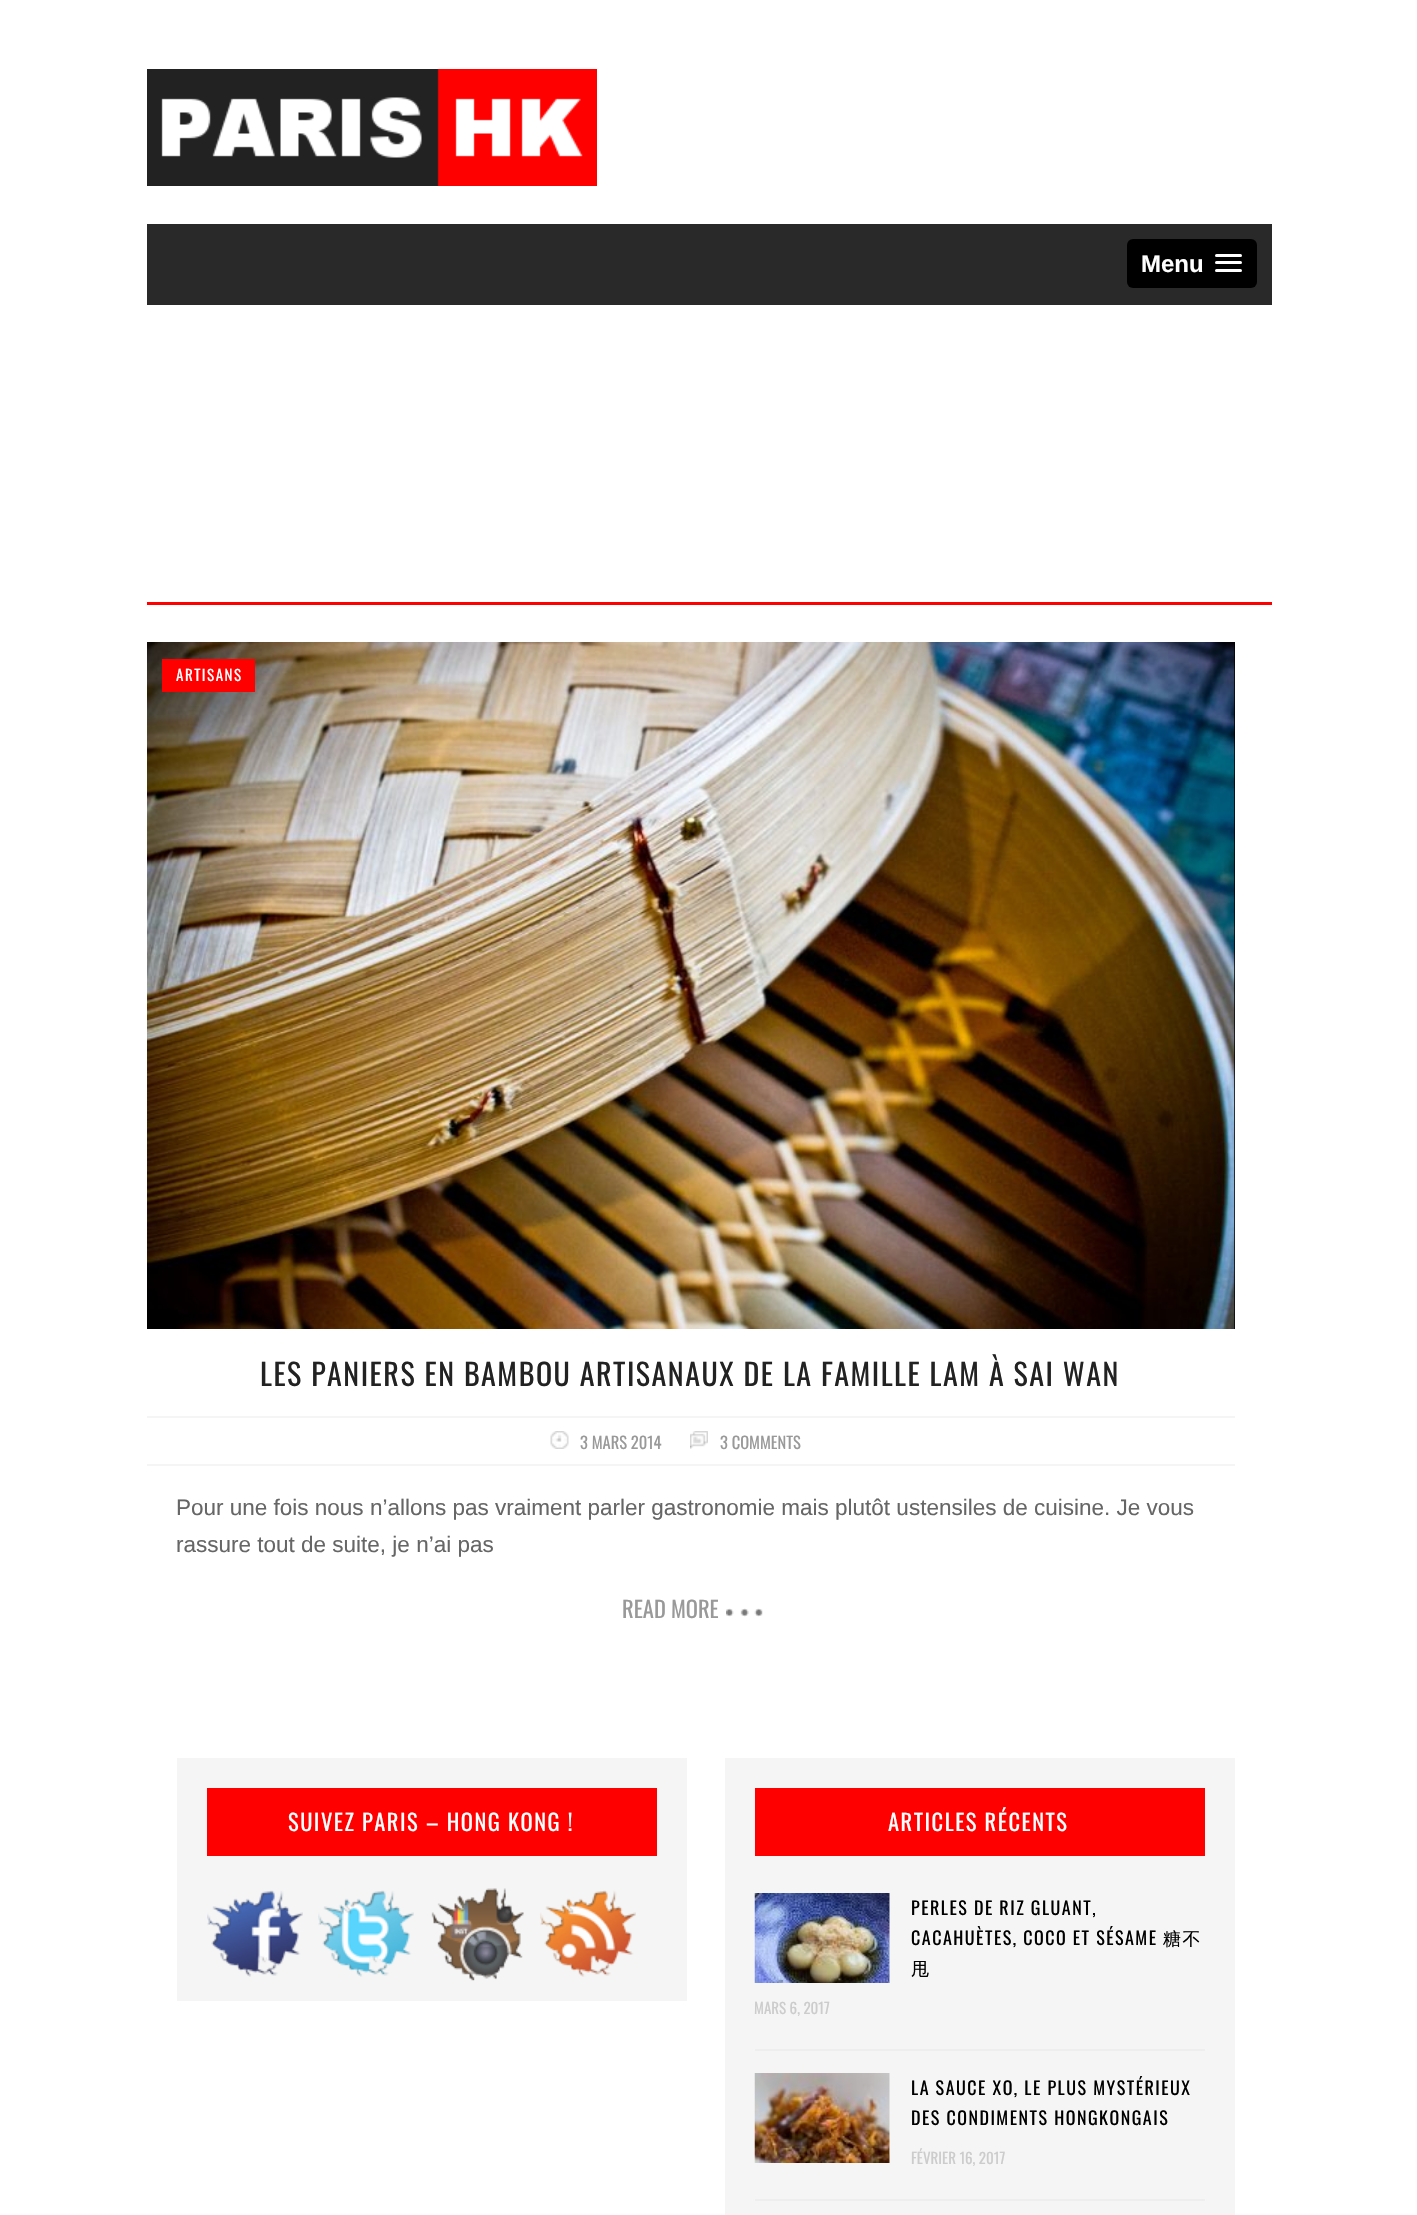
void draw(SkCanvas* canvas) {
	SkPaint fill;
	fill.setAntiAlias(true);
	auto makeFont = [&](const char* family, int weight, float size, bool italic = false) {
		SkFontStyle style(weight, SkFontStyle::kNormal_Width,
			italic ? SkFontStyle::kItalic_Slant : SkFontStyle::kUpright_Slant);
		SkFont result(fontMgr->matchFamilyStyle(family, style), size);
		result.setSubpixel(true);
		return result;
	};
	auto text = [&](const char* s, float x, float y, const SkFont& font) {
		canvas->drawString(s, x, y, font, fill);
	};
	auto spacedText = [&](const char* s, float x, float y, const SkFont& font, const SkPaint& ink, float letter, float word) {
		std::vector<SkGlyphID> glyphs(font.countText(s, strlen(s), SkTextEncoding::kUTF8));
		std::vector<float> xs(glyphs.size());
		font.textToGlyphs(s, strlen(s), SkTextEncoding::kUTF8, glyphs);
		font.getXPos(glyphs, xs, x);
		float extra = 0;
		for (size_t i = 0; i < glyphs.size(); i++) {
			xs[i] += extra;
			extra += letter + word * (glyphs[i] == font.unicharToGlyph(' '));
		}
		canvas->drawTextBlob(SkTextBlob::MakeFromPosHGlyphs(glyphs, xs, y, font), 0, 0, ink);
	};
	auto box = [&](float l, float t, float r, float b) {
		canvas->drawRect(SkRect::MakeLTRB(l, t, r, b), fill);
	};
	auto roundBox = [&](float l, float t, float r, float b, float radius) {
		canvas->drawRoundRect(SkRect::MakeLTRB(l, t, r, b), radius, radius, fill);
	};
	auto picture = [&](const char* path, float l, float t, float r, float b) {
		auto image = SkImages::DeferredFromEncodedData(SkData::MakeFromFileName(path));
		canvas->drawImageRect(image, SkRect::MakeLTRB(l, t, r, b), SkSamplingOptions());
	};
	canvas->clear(0xFFFFFFFF);
	picture("image0.png", 147, 69, 597, 186);
	fill.setColor(0xFF292929);
	box(147, 224, 1272, 305);
	fill.setColor(0xFF000000);
	roundBox(1127, 239, 1257, 288, 6);
	fill.setColor(0xFFFFFFFF);
	roundBox(1215, 254, 1242, 257, 1.5f);
	roundBox(1215, 261, 1242, 264, 1.5f);
	roundBox(1215, 269, 1242, 272, 1.5f);
	fill.setColor(0xFFFF0000);
	box(147, 602, 1272, 605);
	fill.setColor(0xFF000000);
	box(1234, 642, 1235, 1329);
	picture("image1.png", 147, 642, 1235, 1329);
	fill.setColor(0xFFFF0000);
	box(162, 659, 255, 692);
	fill.setColor(0xFFF5F5F5);
	box(147, 1416, 1235, 1418);
	box(147, 1464, 1235, 1466);
	picture("image2.png", 550, 1431, 569, 1449);
	picture("image3.png", 690, 1431, 708, 1449);
	picture("image4.png", 726, 1608, 763, 1617);
	box(177, 1758, 687, 2001);
	fill.setColor(0xFFFF0000);
	box(207, 1788, 657, 1856);
	picture("image5.png", 207, 1890, 303, 1977);
	picture("image6.png", 318, 1890, 414, 1977);
	picture("image7.png", 431, 1888, 524, 1981);
	picture("image8.png", 540, 1890, 636, 1977);
	fill.setColor(0xFFF5F5F5);
	box(725, 1758, 1235, 2215);
	fill.setColor(0xFFFF0000);
	box(755, 1788, 1205, 1856);
	fill.setColor(0xFFEEEEEE);
	box(755, 2049, 1205, 2051);
	picture("image9.png", 754, 1893, 890, 1983);
	box(755, 2199, 1205, 2201);
	picture("image10.png", 754, 2073, 890, 2163);
	auto font1 = makeFont("Liberation Sans", 700, 24);
	fill.setColor(0xFFFFFFFF);
	text("Menu", 1141, 272, font1);
	auto font2 = makeFont("Oswald", 400, 15);
	spacedText("ARTISANS", 176, 681, font2, fill, 1.5f, 0);
	auto font3 = makeFont("Oswald", 400, 30);
	fill.setColor(0xFF222222);
	spacedText("LES PANIERS EN BAMBOU ARTISANAUX DE LA FAMILLE LAM À SAI WAN", 260, 1386, font3, fill, 1.5f, 0);
	auto font4 = makeFont("Oswald", 400, 16.5f);
	fill.setColor(0xFF999999);
	text("3 MARS 2014", 580, 1449, font4);
	text("3 COMMENTS", 720, 1449, font4);
	auto font5 = makeFont("Liberation Sans", 400, 22.5f);
	fill.setColor(0xFF666666);
	text("Pour une fois nous n’allons pas vraiment parler gastronomie mais plutôt ustensiles de cuisine. Je vous", 176, 1515, font5);
	text("rassure tout de suite, je n’ai pas", 176, 1552, font5);
	auto font6 = makeFont("Oswald", 400, 22.5f);
	fill.setColor(0xFF999999);
	text("READ MORE", 622, 1618, font6);
	fill.setColor(0xFFFFFFFF);
	spacedText("SUIVEZ PARIS – HONG KONG !", 288, 1831, font6, fill, 1.5f, 0);
	spacedText("ARTICLES RÉCENTS", 888, 1831, font6, fill, 1.5f, 0);
	auto font7 = makeFont("Oswald", 400, 18);
	fill.setColor(0xFF000000);
	spacedText("PERLES DE RIZ GLUANT,", 911, 1915, font7, fill, 1.5f, 0);
	spacedText("CACAHUÈTES, COCO ET SÉSAME", 911, 1945, font7, fill, 1.5f, 0);
	auto font8 = makeFont("WenQuanYi Zen Hei", 500, 18);
	spacedText("糖不", 1163, 1945, font8, fill, 1.5f, 0);
	spacedText("甩", 911, 1975, font8, fill, 1.5f, 0);
	fill.setColor(0xFFCCCCCC);
	text("MARS 6, 2017", 754, 2014, font2);
	fill.setColor(0xFF000000);
	spacedText("LA SAUCE XO, LE PLUS MYSTÉRIEUX", 911, 2095, font7, fill, 1.5f, 0);
	spacedText("DES CONDIMENTS HONGKONGAIS", 911, 2125, font7, fill, 1.5f, 0);
	fill.setColor(0xFFCCCCCC);
	text("FÉVRIER 16, 2017", 911, 2164, font2);
}
